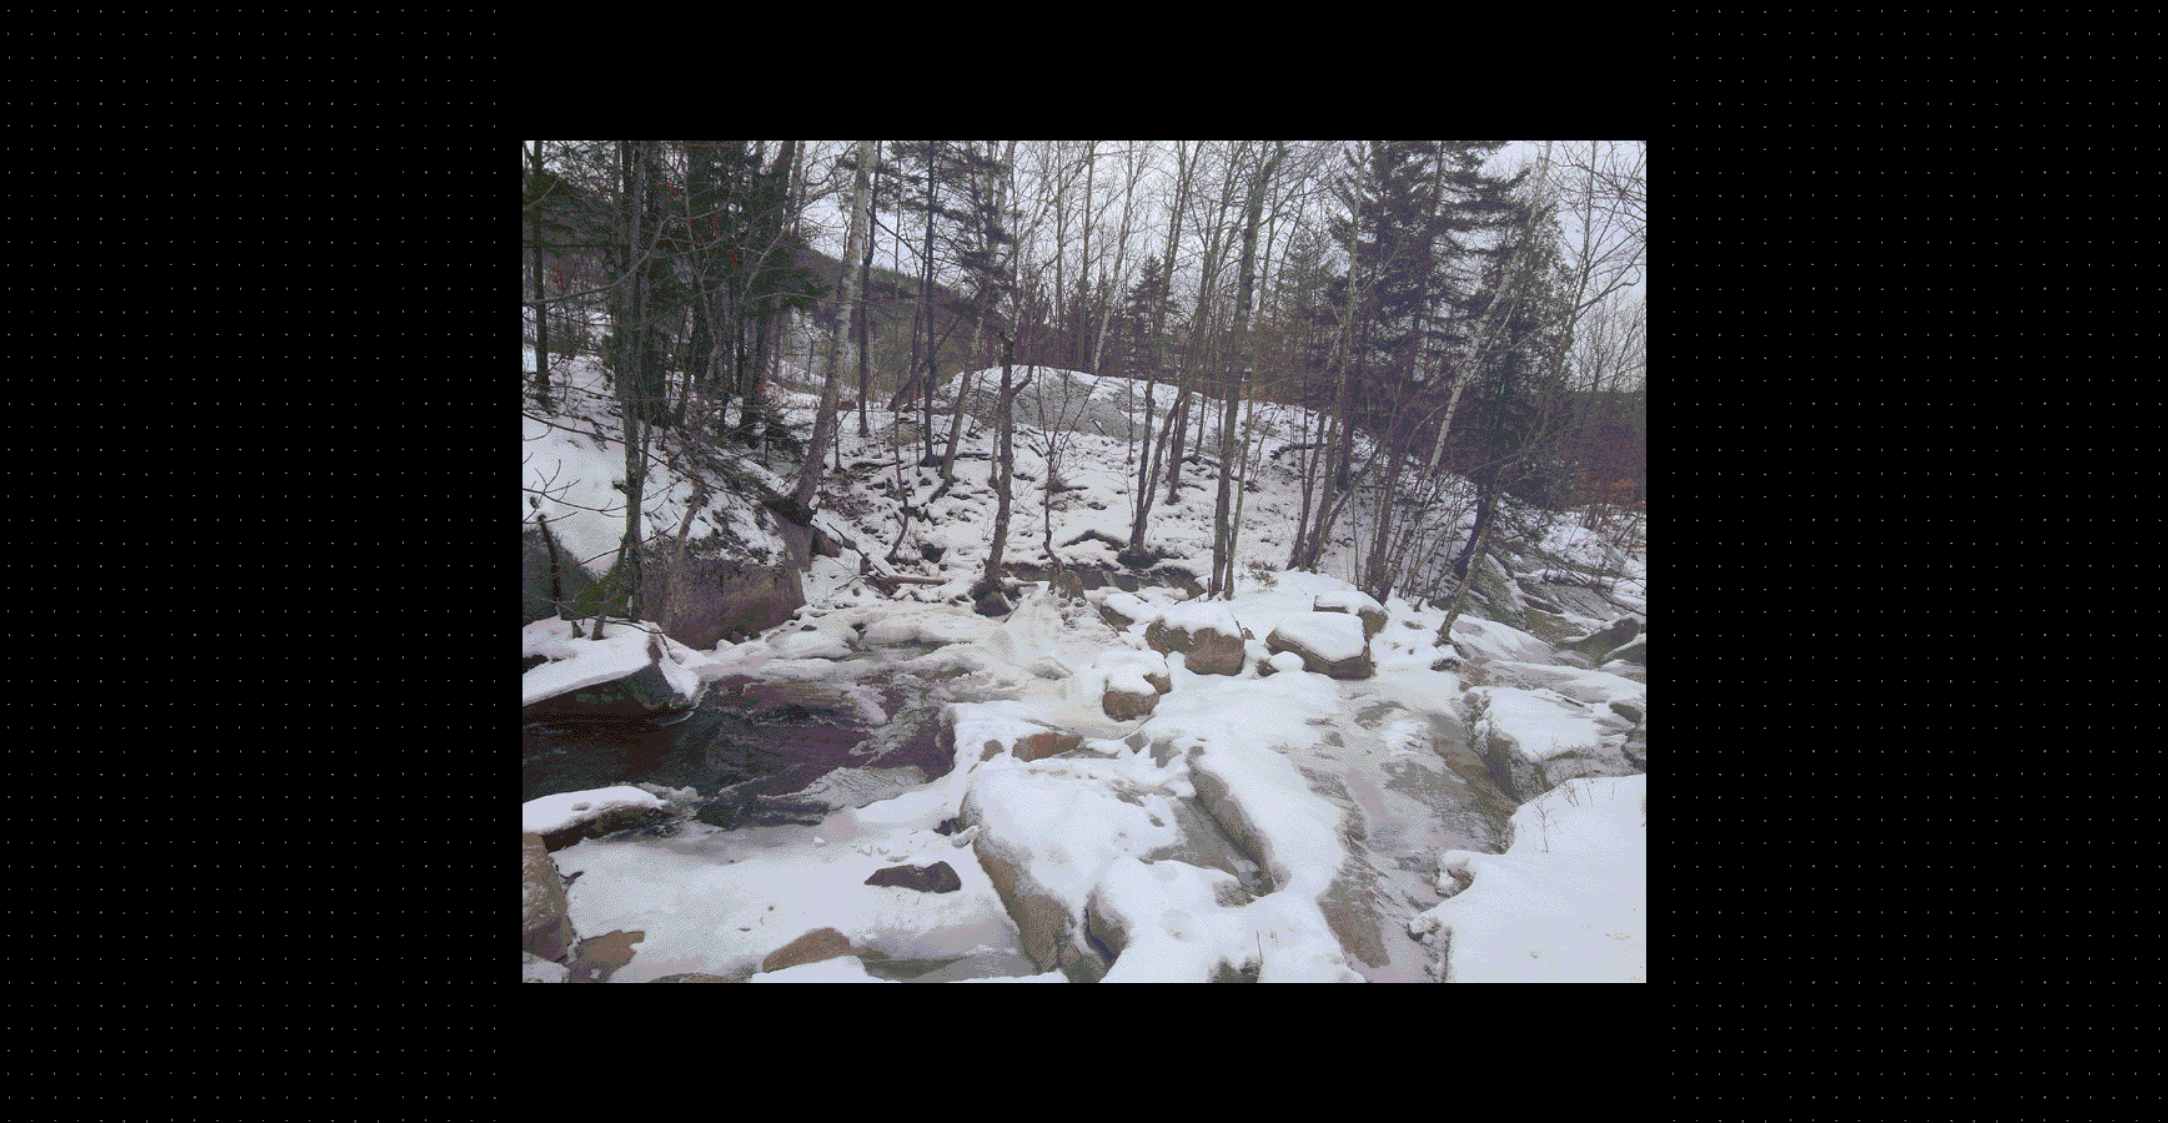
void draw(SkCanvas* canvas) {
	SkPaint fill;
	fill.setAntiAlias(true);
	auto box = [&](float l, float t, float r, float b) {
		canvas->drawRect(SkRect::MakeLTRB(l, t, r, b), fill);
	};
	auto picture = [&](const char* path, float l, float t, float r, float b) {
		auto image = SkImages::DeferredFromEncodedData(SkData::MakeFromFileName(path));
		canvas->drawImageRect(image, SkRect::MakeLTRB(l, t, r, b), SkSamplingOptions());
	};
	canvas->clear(0xFF000000);
	picture("image0.png", 7, 8, 2162, 1123);
	fill.setColor(0xFF000000);
	box(516, 8, 1653, 1123);
	picture("image1.png", 522, 140, 1647, 984);
}
